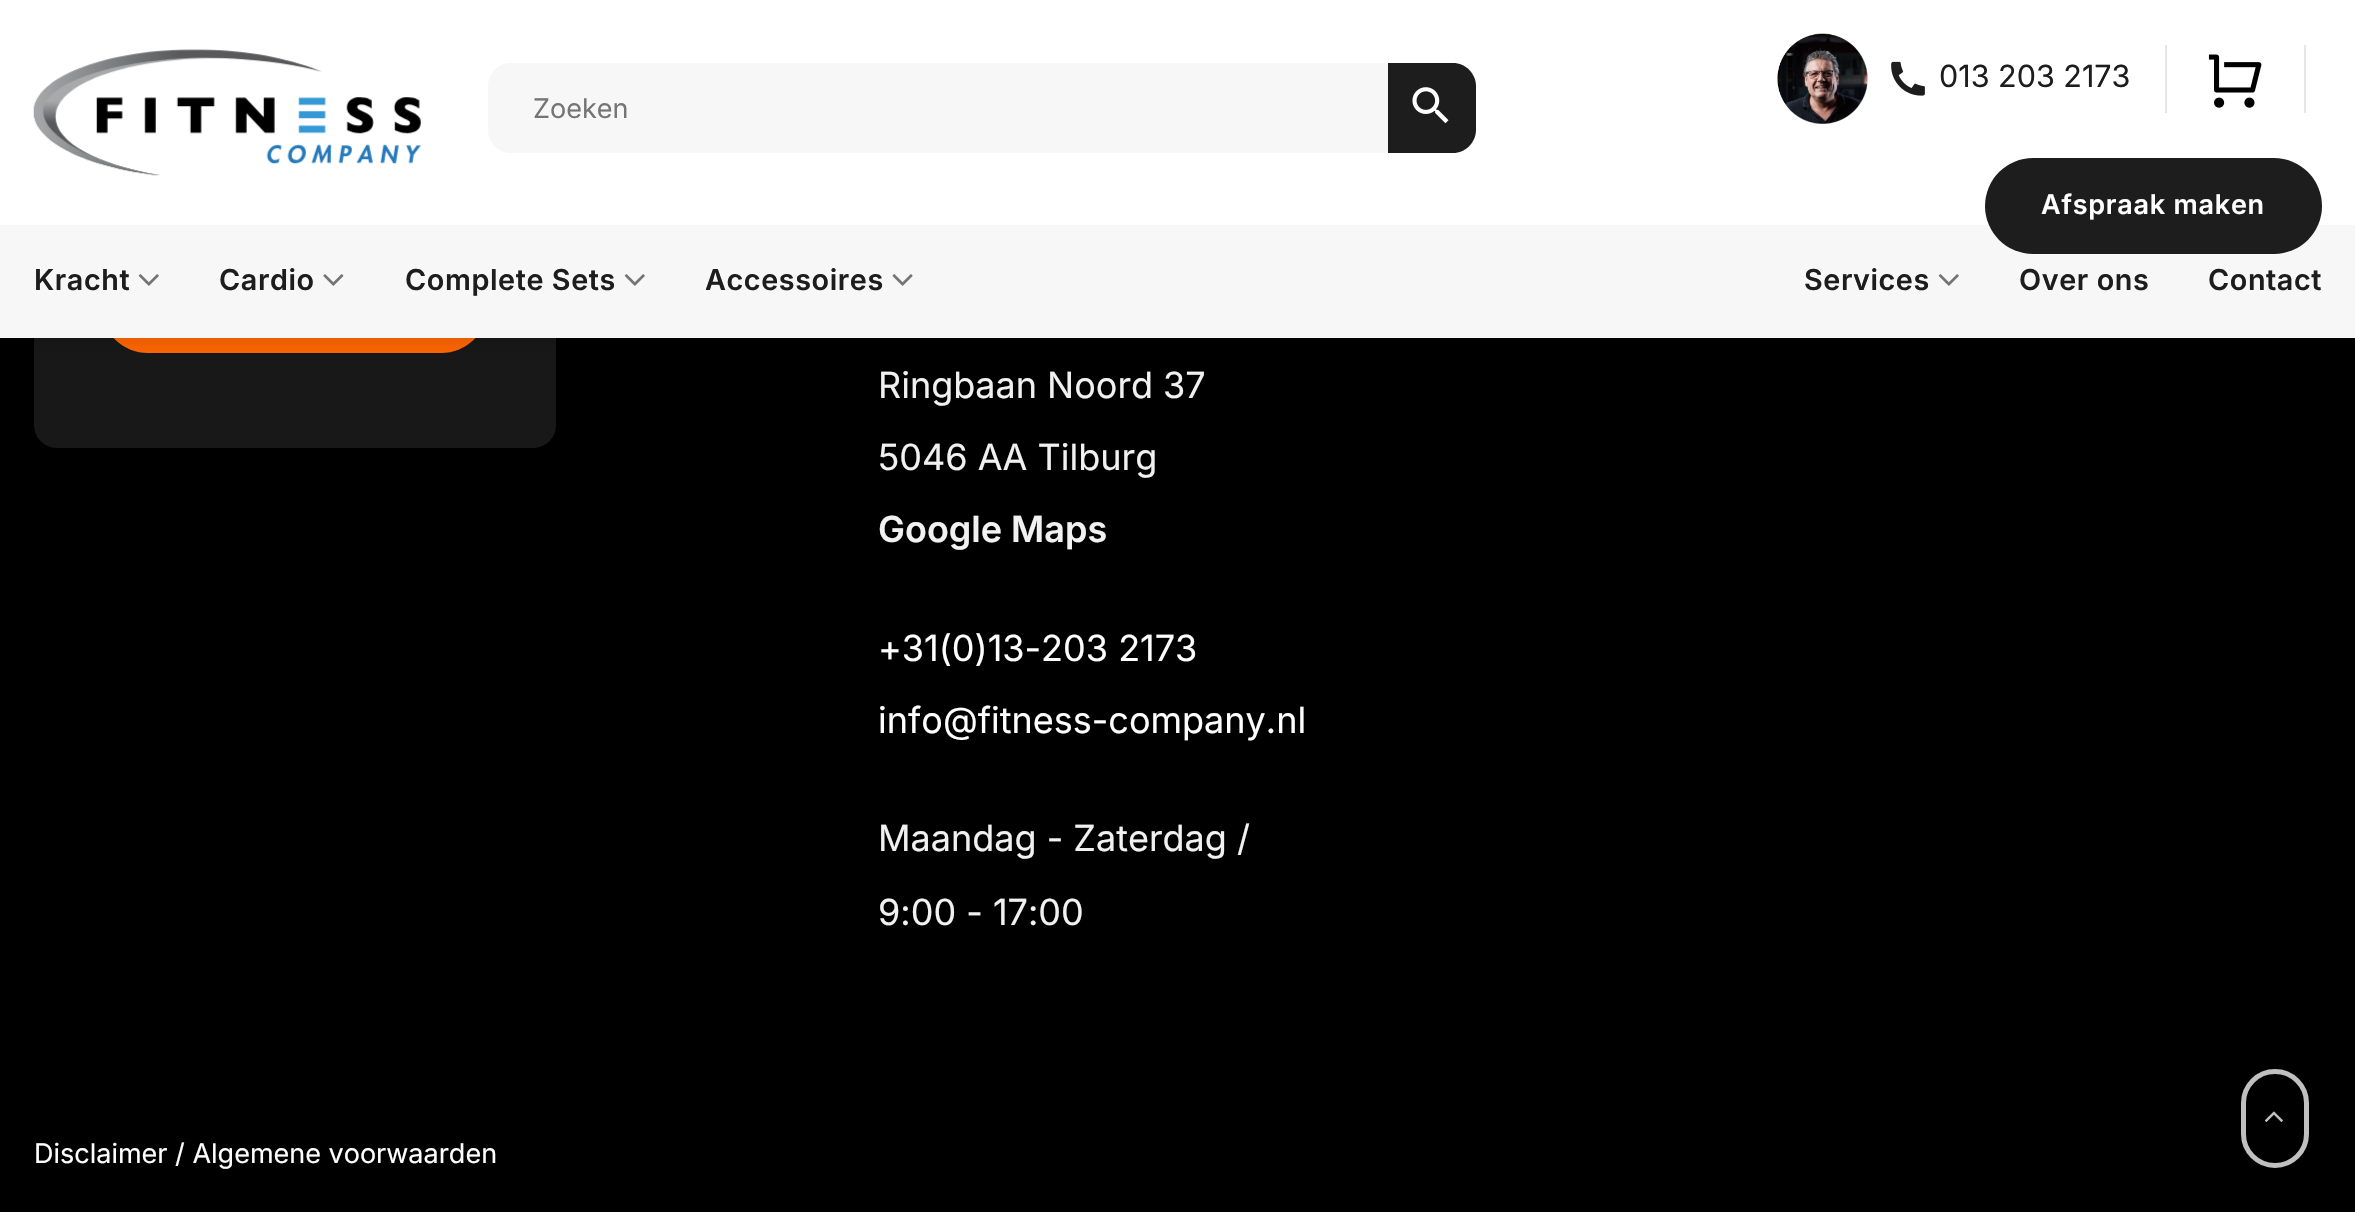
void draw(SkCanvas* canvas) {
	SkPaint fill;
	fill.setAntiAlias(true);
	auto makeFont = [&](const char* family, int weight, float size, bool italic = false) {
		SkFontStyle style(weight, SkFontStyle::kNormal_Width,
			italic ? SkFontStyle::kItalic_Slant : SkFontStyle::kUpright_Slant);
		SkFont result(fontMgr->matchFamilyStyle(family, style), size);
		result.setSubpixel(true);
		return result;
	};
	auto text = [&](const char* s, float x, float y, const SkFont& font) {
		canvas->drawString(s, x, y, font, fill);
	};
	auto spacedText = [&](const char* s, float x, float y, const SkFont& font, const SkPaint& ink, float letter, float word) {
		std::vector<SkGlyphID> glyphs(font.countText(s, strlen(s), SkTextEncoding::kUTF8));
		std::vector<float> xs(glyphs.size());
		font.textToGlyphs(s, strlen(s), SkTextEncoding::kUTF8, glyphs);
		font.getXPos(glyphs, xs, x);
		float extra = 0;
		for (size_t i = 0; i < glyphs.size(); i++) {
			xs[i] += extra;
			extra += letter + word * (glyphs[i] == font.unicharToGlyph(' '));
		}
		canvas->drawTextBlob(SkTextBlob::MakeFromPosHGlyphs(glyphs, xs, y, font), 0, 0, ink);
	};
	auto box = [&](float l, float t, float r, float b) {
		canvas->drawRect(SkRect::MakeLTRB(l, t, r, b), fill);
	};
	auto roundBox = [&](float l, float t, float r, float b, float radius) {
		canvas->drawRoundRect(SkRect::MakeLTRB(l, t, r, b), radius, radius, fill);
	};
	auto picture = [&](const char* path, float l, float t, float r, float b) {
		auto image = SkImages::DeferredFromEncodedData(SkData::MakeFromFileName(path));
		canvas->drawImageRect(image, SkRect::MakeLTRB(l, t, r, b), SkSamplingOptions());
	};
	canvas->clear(0xFF000000);
	fill.setColor(0xFF181818);
	roundBox(34, -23, 556, 448, 23);
	fill.setColor(0xFFFF6602);
	roundBox(101, 259, 488, 353, 47);
	fill.setColor(0x26000000);
	fill.setMaskFilter(SkMaskFilter::MakeBlur(kNormal_SkBlurStyle, 11));
	canvas->drawRect(SkRect::MakeLTRB(2, 2, 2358, 340), fill);
	fill.setMaskFilter(nullptr);
	fill.setColor(0xFFFFFFFF);
	box(0, 0, 2355, 225);
	picture("image0.png", 33, 49, 421, 176);
	fill.setColor(0xFF1D1D1D);
	canvas->drawPath(SkPathBuilder().moveTo(1386, 63).lineTo(1453, 63).cubicTo(1465.5f, 63, 1476, 73.5f, 1476, 86).lineTo(1476, 130).cubicTo(1476, 142.5f, 1465.5f, 153, 1453, 153).lineTo(1386, 153).close().detach(), fill);
	fill.setColor(0xFFF7F7F7);
	canvas->drawPath(SkPathBuilder().moveTo(511, 63).lineTo(1388, 63).lineTo(1388, 153).lineTo(511, 153).cubicTo(498.5f, 153, 488, 142.5f, 488, 130).lineTo(488, 86).cubicTo(488, 73.5f, 498.5f, 63, 511, 63).close().detach(), fill);
	picture("image1.png", 1412, 87, 1449, 124);
	picture("image2.png", 1777, 33, 1868, 124);
	picture("image3.png", 1891, 61, 1925, 96);
	fill.setColor(0xFFE6E6E6);
	box(2165, 45, 2167, 113);
	picture("image4.png", 2208, 54, 2262, 108);
	box(2304, 45, 2306, 113);
	fill.setColor(0xFFF7F7F7);
	box(0, 225, 2355, 338);
	fill.setColor(0xFF1D1D1D);
	roundBox(1985, 158, 2322, 254, 48);
	picture("image5.png", 138, 274, 159, 286);
	picture("image6.png", 323, 274, 344, 286);
	picture("image5.png", 624, 274, 645, 286);
	picture("image7.png", 892, 274, 913, 286);
	picture("image5.png", 1938, 274, 1959, 286);
	fill.setStyle(SkPaint::kStroke_Style);
	fill.setStrokeWidth(5);
	fill.setColor(0xFFC0C0C0);
	canvas->drawRoundRect(SkRect::MakeLTRB(2243.5f, 1071.5f, 2306.5f, 1165.5f), 31.5f, 31.5f, fill);
	picture("image8.png", 2264, 1111, 2283, 1122);
	auto font1 = makeFont("Inter", 400, 27);
	fill.setStyle(SkPaint::kFill_Style);
	fill.setColor(0xFF757575);
	text("Zoeken", 533, 118, font1);
	auto font2 = makeFont("Inter", 400, 30.5f);
	fill.setColor(0xFF1D1D1D);
	text("013 203 2173", 1939, 87, font2);
	auto font3 = makeFont("Inter", 600, 27);
	fill.setColor(0xFFFFFFFF);
	spacedText("Afspraak maken", 2041, 214, font3, fill, 0.75f, 0);
	auto font4 = makeFont("Inter", 600, 28.75f);
	fill.setColor(0xFF1D1D1D);
	spacedText("Kracht", 34, 290, font4, fill, 0.6f, 0);
	spacedText("Cardio", 219, 290, font4, fill, 0.6f, 0);
	spacedText("Complete Sets", 405, 290, font4, fill, 0.6f, 0);
	spacedText("Accessoires", 705, 290, font4, fill, 0.6f, 0);
	spacedText("Services", 1804, 290, font4, fill, 0.6f, 0);
	spacedText("Over ons", 2019, 290, font4, fill, 0.6f, 0);
	spacedText("Contact", 2208, 290, font4, fill, 0.6f, 0);
	auto font5 = makeFont("Inter", 400, 36);
	fill.setColor(0xFFF1F1F1);
	text("Ringbaan Noord 37", 878, 398, font5);
	text("5046 AA Tilburg", 878, 470, font5);
	auto font6 = makeFont("Inter", 600, 36);
	text("Google Maps", 878, 542, font6);
	fill.setColor(0xFFFFFFFF);
	text("+31(0)13-203 2173", 878, 661, font5);
	text("info@fitness-company.nl", 878, 733, font5);
	fill.setColor(0xFFF1F1F1);
	text("Maandag - Zaterdag /", 878, 851, font5);
	text("9:00 - 17:00", 878, 925, font5);
	fill.setColor(0xFFFFFFFF);
	text("Disclaimer / Algemene voorwaarden", 34, 1163, font1);
}
